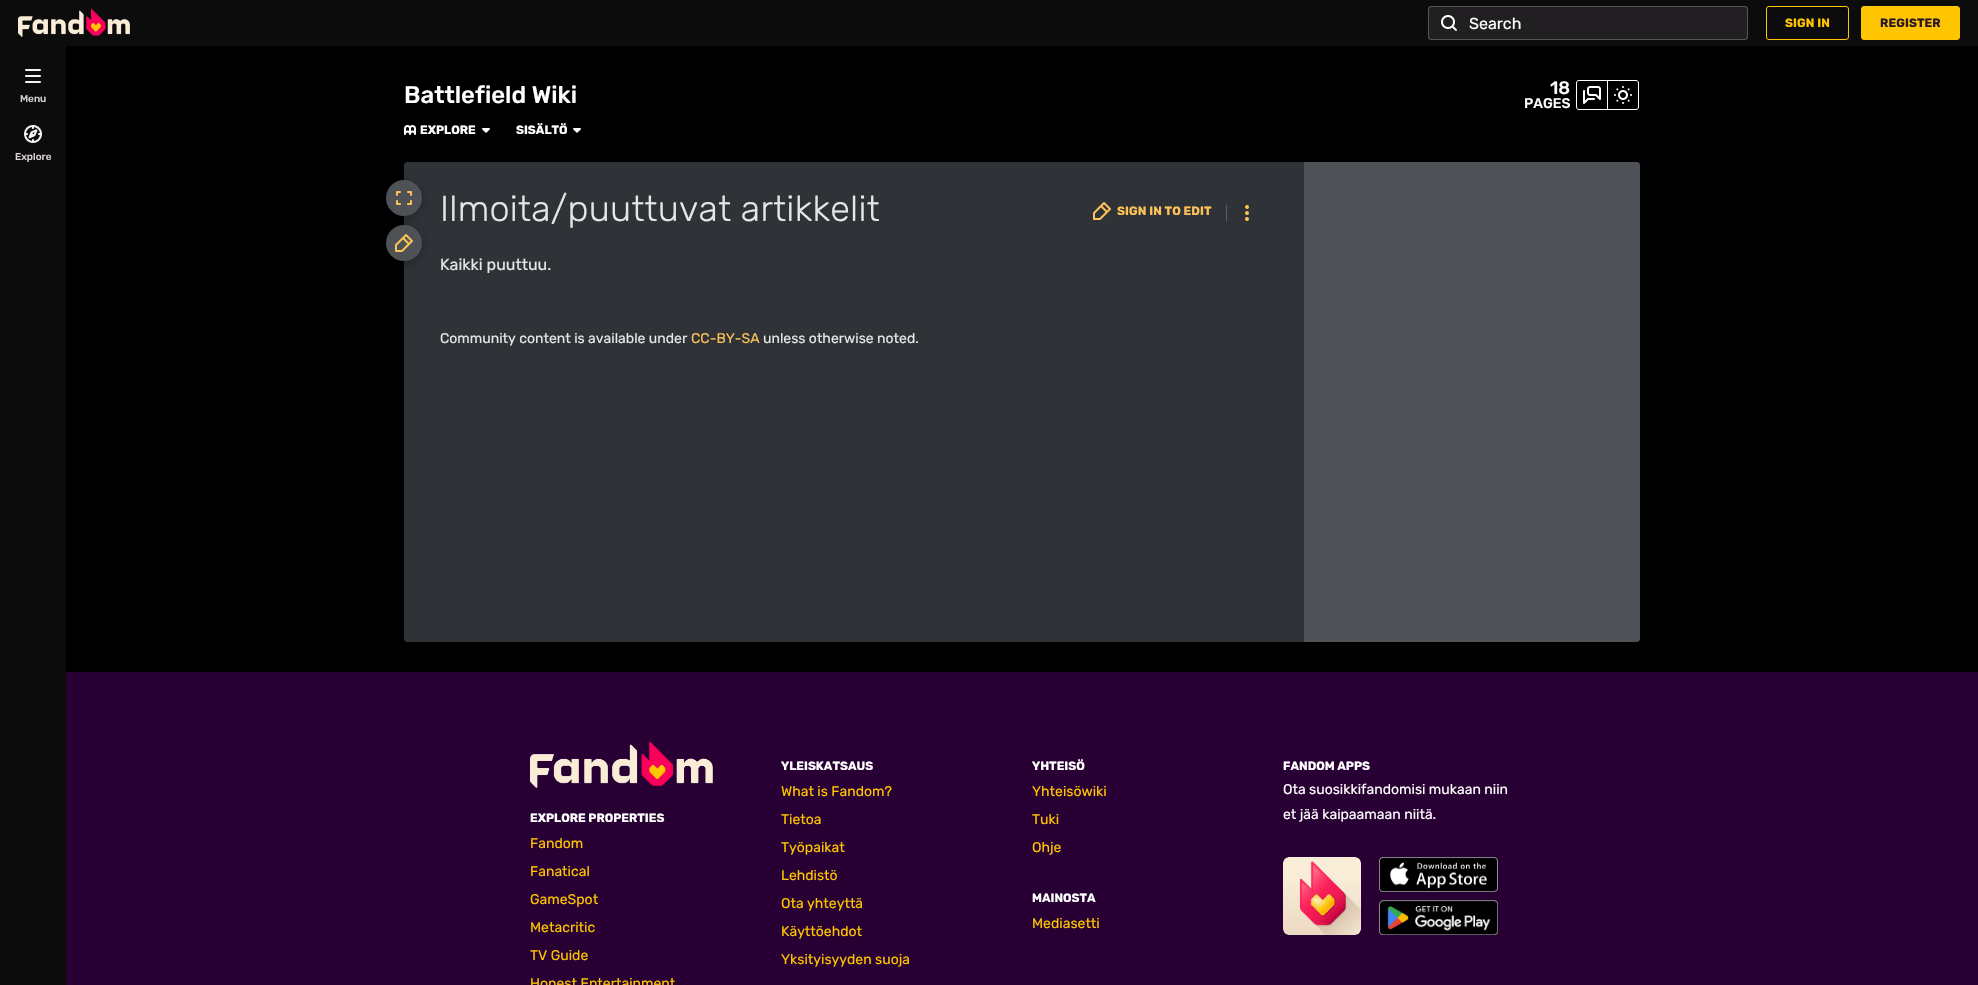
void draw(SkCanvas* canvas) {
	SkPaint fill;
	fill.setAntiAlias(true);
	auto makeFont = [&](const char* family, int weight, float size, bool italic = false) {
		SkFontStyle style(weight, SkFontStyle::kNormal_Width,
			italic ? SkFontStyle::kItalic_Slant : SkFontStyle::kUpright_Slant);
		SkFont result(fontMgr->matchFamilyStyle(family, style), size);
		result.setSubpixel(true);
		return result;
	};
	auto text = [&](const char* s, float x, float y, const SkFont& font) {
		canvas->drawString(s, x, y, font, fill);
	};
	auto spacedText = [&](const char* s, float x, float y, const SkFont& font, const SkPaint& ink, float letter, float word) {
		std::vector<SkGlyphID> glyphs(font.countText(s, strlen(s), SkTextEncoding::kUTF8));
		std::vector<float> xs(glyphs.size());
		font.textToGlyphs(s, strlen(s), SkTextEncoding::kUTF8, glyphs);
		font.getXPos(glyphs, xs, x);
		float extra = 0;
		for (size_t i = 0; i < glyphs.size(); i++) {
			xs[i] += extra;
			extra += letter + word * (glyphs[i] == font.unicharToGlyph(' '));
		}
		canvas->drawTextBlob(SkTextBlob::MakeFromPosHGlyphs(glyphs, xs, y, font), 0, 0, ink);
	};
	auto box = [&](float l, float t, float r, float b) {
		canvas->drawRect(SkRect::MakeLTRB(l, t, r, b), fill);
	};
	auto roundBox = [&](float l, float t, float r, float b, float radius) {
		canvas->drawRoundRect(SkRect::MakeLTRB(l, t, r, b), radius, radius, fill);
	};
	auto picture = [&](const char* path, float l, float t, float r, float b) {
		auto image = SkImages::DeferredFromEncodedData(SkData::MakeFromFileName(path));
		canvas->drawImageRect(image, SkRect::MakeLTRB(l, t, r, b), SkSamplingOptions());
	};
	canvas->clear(0xFF000000);
	fill.setColor(0xFF0C0C0C);
	box(0, 0, 1978, 46);
	picture("image0.png", 18, 9, 130, 37);
	fill.setColor(0xFF211F21);
	roundBox(1428, 6, 1748, 40, 3);
	fill.setStyle(SkPaint::kStroke_Style);
	fill.setStrokeWidth(1);
	fill.setColor(0x40F5F3F5);
	canvas->drawRoundRect(SkRect::MakeLTRB(1428.5f, 6.5f, 1747.5f, 39.5f), 2.5f, 2.5f, fill);
	picture("image1.png", 1441, 15, 1457, 31);
	fill.setColor(0xFFFFC500);
	canvas->drawRoundRect(SkRect::MakeLTRB(1766.5f, 6.5f, 1848.5f, 39.5f), 2.5f, 2.5f, fill);
	fill.setStyle(SkPaint::kFill_Style);
	canvas->drawRoundRect(SkRect::MakeLTRB(1861.5f, 6.5f, 1959.5f, 39.5f), 2.5f, 2.5f, fill);
	fill.setStyle(SkPaint::kStroke_Style);
	canvas->drawRoundRect(SkRect::MakeLTRB(1861.5f, 6.5f, 1959.5f, 39.5f), 2.5f, 2.5f, fill);
	fill.setStyle(SkPaint::kFill_Style);
	fill.setColor(0xFF0C0C0C);
	box(0, 46, 66, 985);
	picture("image2.png", 25, 69, 41, 83);
	picture("image3.png", 24, 125, 42, 143);
	fill.setStyle(SkPaint::kStroke_Style);
	fill.setColor(0xFFFFFFFF);
	canvas->drawPath(SkPathBuilder().moveTo(1579, 80.5f).lineTo(1607.5f, 80.5f).lineTo(1607.5f, 109.5f).lineTo(1579, 109.5f).cubicTo(1577.5f, 109.5f, 1576.5f, 108.5f, 1576.5f, 107).lineTo(1576.5f, 83).cubicTo(1576.5f, 81.5f, 1577.5f, 80.5f, 1579, 80.5f).close().detach(), fill);
	picture("image4.png", 1583, 86, 1601, 104);
	canvas->drawPath(SkPathBuilder().moveTo(1607.5f, 80.5f).lineTo(1636, 80.5f).cubicTo(1637.5f, 80.5f, 1638.5f, 81.5f, 1638.5f, 83).lineTo(1638.5f, 107).cubicTo(1638.5f, 108.5f, 1637.5f, 109.5f, 1636, 109.5f).lineTo(1607.5f, 109.5f).close().detach(), fill);
	picture("image5.png", 1614, 86, 1632, 104);
	picture("image6.png", 404, 125, 416, 135);
	picture("image7.png", 482, 128, 490, 133);
	picture("image7.png", 573, 128, 581, 133);
	fill.setStyle(SkPaint::kFill_Style);
	fill.setColor(0xFF2F3338);
	canvas->drawPath(SkPathBuilder().moveTo(407, 162).lineTo(1304, 162).lineTo(1304, 642).lineTo(407, 642).cubicTo(405.5f, 642, 404, 640.5f, 404, 639).lineTo(404, 165).cubicTo(404, 163.5f, 405.5f, 162, 407, 162).close().detach(), fill);
	fill.setColor(0x4D000000);
	fill.setMaskFilter(SkMaskFilter::MakeBlur(kNormal_SkBlurStyle, 6));
	canvas->drawRoundRect(SkRect::MakeLTRB(386, 183, 422, 219), 18, 18, fill);
	fill.setMaskFilter(nullptr);
	fill.setColor(0xFF4E5256);
	canvas->drawCircle(404, 198, 18, fill);
	picture("image8.png", 396, 191, 412, 205);
	fill.setColor(0x4D000000);
	fill.setMaskFilter(SkMaskFilter::MakeBlur(kNormal_SkBlurStyle, 6));
	canvas->drawRoundRect(SkRect::MakeLTRB(386, 228, 422, 264), 18, 18, fill);
	fill.setMaskFilter(nullptr);
	fill.setColor(0xFF4E5256);
	canvas->drawCircle(404, 243, 18, fill);
	picture("image9.png", 395, 234, 413, 252);
	picture("image10.png", 1093, 202, 1111, 220);
	fill.setColor(0xFF5D6064);
	box(1226, 205, 1227, 221);
	picture("image11.png", 1245, 205, 1249, 221);
	fill.setColor(0xFF4E5256);
	canvas->drawPath(SkPathBuilder().moveTo(1304, 162).lineTo(1637, 162).cubicTo(1638.5f, 162, 1640, 163.5f, 1640, 165).lineTo(1640, 639).cubicTo(1640, 640.5f, 1638.5f, 642, 1637, 642).lineTo(1304, 642).close().detach(), fill);
	fill.setColor(0xFF280033);
	box(66, 672, 1978, 985);
	picture("image12.png", 1283, 857, 1361, 935);
	picture("image13.png", 1379, 857, 1498, 892);
	picture("image14.png", 1379, 900, 1498, 935);
	picture("image15.png", 530, 742, 713, 788);
	auto font1 = makeFont("Rubik", 400, 16);
	fill.setColor(0xFFFFFFFF);
	text("Search", 1469, 29, font1);
	auto font2 = makeFont("Rubik", 700, 12);
	fill.setColor(0xFFFFC500);
	spacedText("SIGN IN", 1785, 27, font2, fill, 0.1f, 0);
	fill.setColor(0xFF291927);
	spacedText("REGISTER", 1880, 27, font2, fill, 0.1f, 0);
	auto font3 = makeFont("Rubik", 500, 10);
	fill.setColor(0xFFD6D0D5);
	text("Menu", 20, 102, font3);
	text("Explore", 15, 160, font3);
	auto font4 = makeFont("Rubik", 500, 24);
	fill.setColor(0xFFFFFFFF);
	text("Battlefield Wiki", 404, 103, font4);
	auto font5 = makeFont("Rubik", 500, 18);
	text("18", 1550, 94, font5);
	auto font6 = makeFont("Rubik", 500, 14);
	text("PAGES", 1524, 108, font6);
	text("EXPLORE", 420, 134, font2);
	text("SISÄLTÖ", 516, 134, font2);
	auto font7 = makeFont("Rubik", 300, 36);
	fill.setColor(0xFFE6E6E6);
	spacedText("Ilmoita/puuttuvat artikkelit", 440, 221, font7, fill, 0.25f, 0);
	fill.setColor(0xFFFEC356);
	spacedText("SIGN IN TO EDIT", 1117, 215, font2, fill, 0.1f, 0);
	fill.setColor(0xFFE6E6E6);
	text("Kaikki puuttuu.", 440, 270, font1);
	auto font8 = makeFont("Rubik", 400, 14);
	text("Community content is available under", 440, 343, font8);
	fill.setColor(0xFFFEC356);
	text("CC-BY-SA", 691, 343, font8);
	fill.setColor(0xFFE6E6E6);
	text("unless otherwise noted.", 763, 343, font8);
	fill.setColor(0xFFFFFFFF);
	text("YLEISKATSAUS", 781, 770, font2);
	fill.setColor(0xFFFFC500);
	text("What is Fandom?", 781, 796, font8);
	text("Tietoa", 781, 824, font8);
	text("Työpaikat", 781, 852, font8);
	text("Lehdistö", 781, 880, font8);
	text("Ota yhteyttä", 781, 908, font8);
	text("Käyttöehdot", 781, 936, font8);
	text("Yksityisyyden suoja", 781, 964, font8);
	fill.setColor(0xFFFFFFFF);
	text("YHTEISÖ", 1032, 770, font2);
	fill.setColor(0xFFFFC500);
	text("Yhteisöwiki", 1032, 796, font8);
	text("Tuki", 1032, 824, font8);
	text("Ohje", 1032, 852, font8);
	fill.setColor(0xFFFFFFFF);
	text("MAINOSTA", 1032, 902, font2);
	fill.setColor(0xFFFFC500);
	text("Mediasetti", 1032, 928, font8);
	fill.setColor(0xFFFFFFFF);
	text("FANDOM APPS", 1283, 770, font2);
	text("Ota suosikkifandomisi mukaan niin", 1283, 794, font8);
	text("et jää kaipaamaan niitä.", 1283, 819, font8);
	text("EXPLORE PROPERTIES", 530, 822, font2);
	fill.setColor(0xFFFFC500);
	text("Fandom", 530, 848, font8);
	text("Fanatical", 530, 876, font8);
	text("GameSpot", 530, 904, font8);
	text("Metacritic", 530, 932, font8);
	text("TV Guide", 530, 960, font8);
	text("Honest Entertainment", 530, 988, font8);
}
